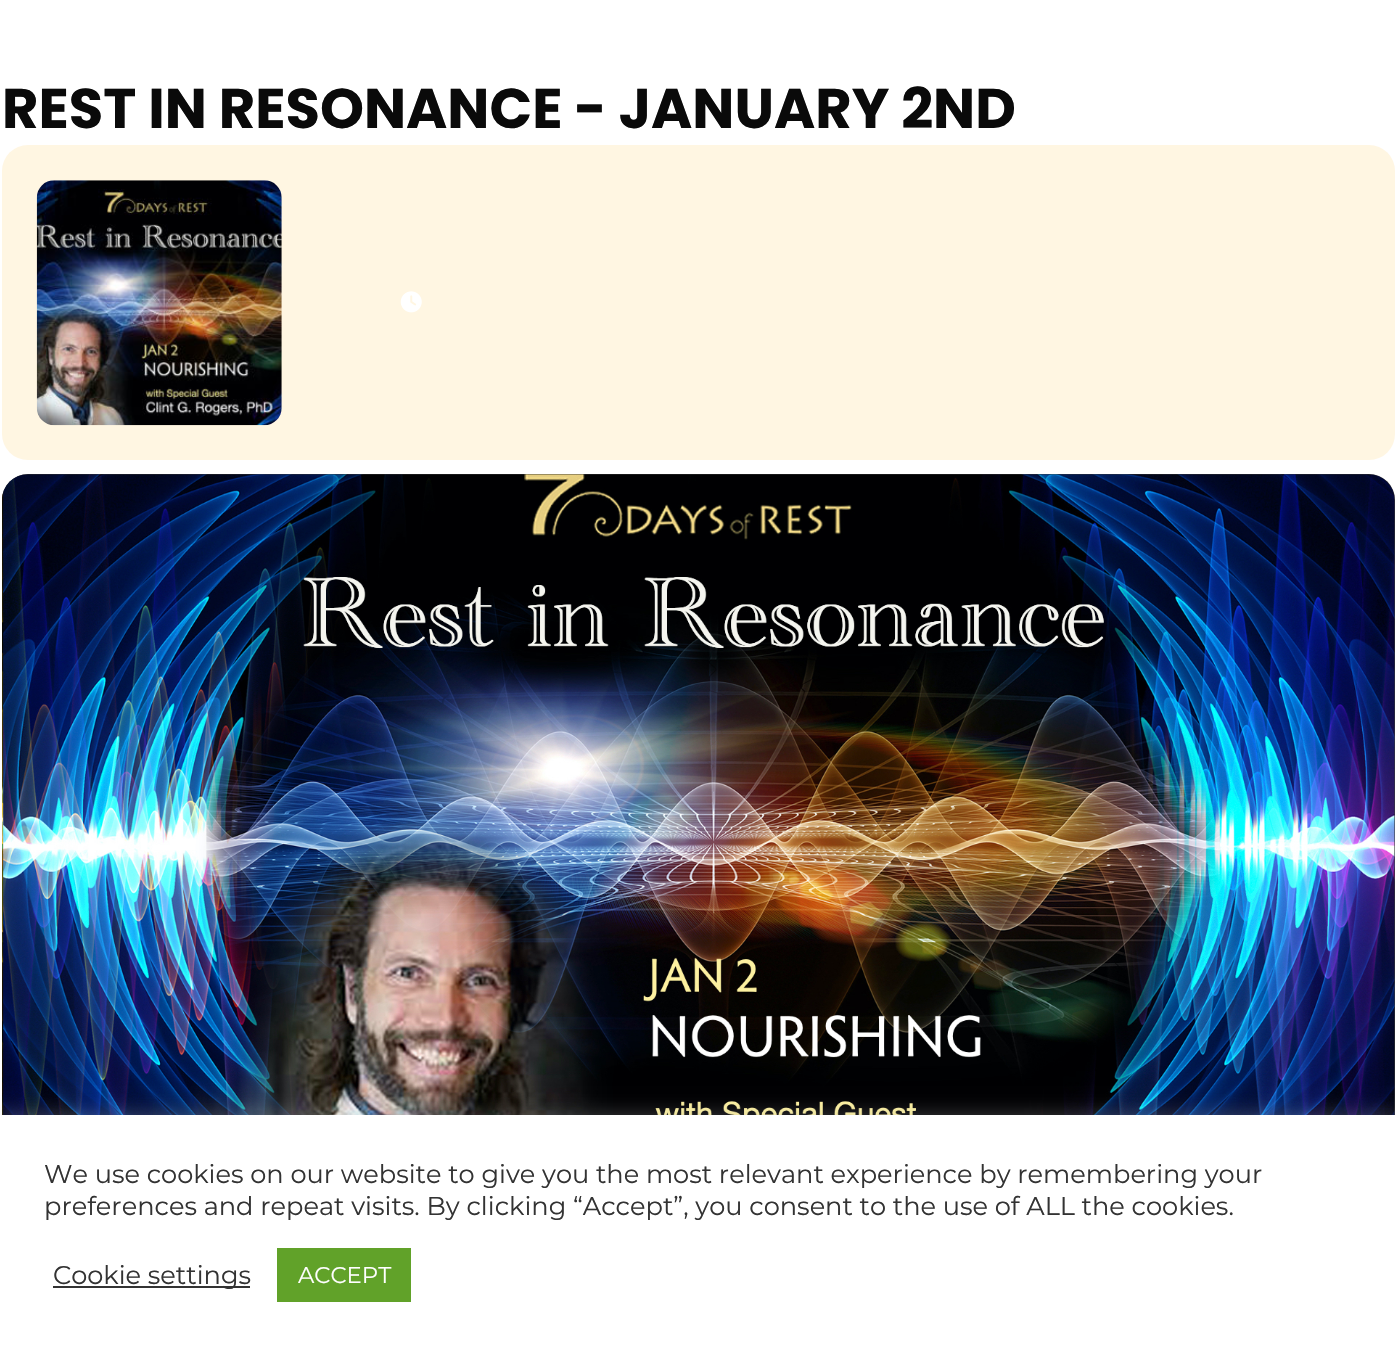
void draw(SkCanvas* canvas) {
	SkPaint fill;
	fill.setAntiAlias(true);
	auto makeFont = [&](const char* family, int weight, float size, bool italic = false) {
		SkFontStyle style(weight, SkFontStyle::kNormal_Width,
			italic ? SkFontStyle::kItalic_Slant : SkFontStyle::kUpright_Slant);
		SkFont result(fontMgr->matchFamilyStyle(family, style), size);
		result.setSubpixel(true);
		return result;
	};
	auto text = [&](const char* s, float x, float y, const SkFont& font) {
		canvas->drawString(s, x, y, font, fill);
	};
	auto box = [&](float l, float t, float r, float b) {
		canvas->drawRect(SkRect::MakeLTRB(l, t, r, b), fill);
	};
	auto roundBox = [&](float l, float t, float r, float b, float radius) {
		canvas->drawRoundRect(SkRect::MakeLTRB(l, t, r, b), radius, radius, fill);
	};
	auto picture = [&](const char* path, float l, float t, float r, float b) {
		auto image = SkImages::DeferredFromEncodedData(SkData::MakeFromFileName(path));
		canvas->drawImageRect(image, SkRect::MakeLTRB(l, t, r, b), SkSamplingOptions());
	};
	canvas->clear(0xFFFFFFFF);
	fill.setColor(0xFFFFF6E2);
	roundBox(2, 145, 1395, 460, 26);
	picture("image0.png", 36, 180, 282, 426);
	picture("image1.png", 400, 291, 422, 313);
	fill.setColor(0xFF333333);
	roundBox(2, 474, 1395, 1174, 26);
	picture("image2.png", 2, 474, 1395, 1115);
	fill.setColor(0x4DACABAB);
	fill.setMaskFilter(SkMaskFilter::MakeBlur(kNormal_SkBlurStyle, 9));
	canvas->drawRect(SkRect::MakeLTRB(0, 1113, 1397, 1353), fill);
	fill.setMaskFilter(nullptr);
	fill.setColor(0xFFFFFFFF);
	box(0, 1115, 1395, 1353);
	fill.setColor(0xFF333333);
	box(53, 1286, 250, 1288);
	fill.setColor(0xFF61A229);
	box(277, 1248, 411, 1302);
	auto font1 = makeFont("Poppins", 700, 56);
	fill.setColor(0xFF0A0A0A);
	text("REST IN RESONANCE - JANUARY 2ND", 2, 128, font1);
	auto font2 = makeFont("Montserrat", 400, 25.65f);
	fill.setColor(0xFF333333);
	text("We use cookies on our website to give you the most relevant experience by remembering your", 44, 1183, font2);
	text("preferences and repeat visits. By clicking “Accept”, you consent to the use of ALL the cookies.", 44, 1215, font2);
	text("Cookie settings", 53, 1284, font2);
	auto font3 = makeFont("Montserrat", 400, 22.75f);
	fill.setColor(0xFFFFFFFF);
	text("ACCEPT", 298, 1283, font3);
}
